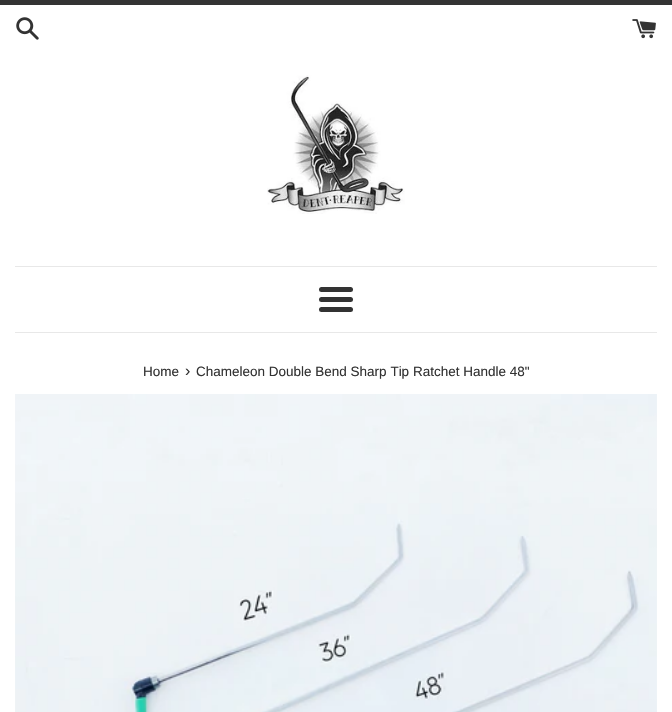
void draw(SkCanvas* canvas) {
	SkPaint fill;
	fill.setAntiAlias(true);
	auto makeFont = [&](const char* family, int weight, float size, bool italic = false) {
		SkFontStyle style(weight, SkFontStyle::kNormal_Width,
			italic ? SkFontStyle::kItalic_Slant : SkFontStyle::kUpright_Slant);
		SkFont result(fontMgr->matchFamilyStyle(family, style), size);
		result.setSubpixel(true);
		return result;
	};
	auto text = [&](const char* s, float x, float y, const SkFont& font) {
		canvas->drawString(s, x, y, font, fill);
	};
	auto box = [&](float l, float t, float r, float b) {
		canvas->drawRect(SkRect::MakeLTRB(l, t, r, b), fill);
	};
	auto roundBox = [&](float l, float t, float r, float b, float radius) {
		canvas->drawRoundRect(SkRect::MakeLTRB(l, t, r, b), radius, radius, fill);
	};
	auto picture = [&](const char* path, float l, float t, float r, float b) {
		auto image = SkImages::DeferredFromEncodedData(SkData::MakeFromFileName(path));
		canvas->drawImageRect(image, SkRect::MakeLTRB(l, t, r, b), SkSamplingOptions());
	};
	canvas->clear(0xFFFFFFFF);
	fill.setColor(0xFF333333);
	box(0, 0, 672, 5);
	picture("image0.png", 16, 17, 39, 40);
	picture("image1.png", 632, 19, 656, 39);
	picture("image2.png", 267, 75, 405, 214);
	fill.setColor(0xFFE8E8E8);
	box(15, 266, 657, 267);
	fill.setColor(0xFF333333);
	roundBox(319, 287, 353, 292, 2.5f);
	roundBox(319, 297, 353, 302, 2.5f);
	roundBox(319, 307, 353, 312, 2.5f);
	fill.setColor(0xFFE8E8E8);
	box(15, 332, 657, 333);
	picture("image3.png", 15, 394, 657, 712);
	auto font1 = makeFont("Liberation Sans", 400, 13.5f);
	fill.setColor(0xFF333333);
	text("Home", 143, 376, font1);
	auto font2 = makeFont("Liberation Sans", 400, 16);
	text("›", 185, 376, font2);
	text("Chameleon Double Bend Sharp Tip Ratchet Handle 48\"", 196, 376, font1);
}
